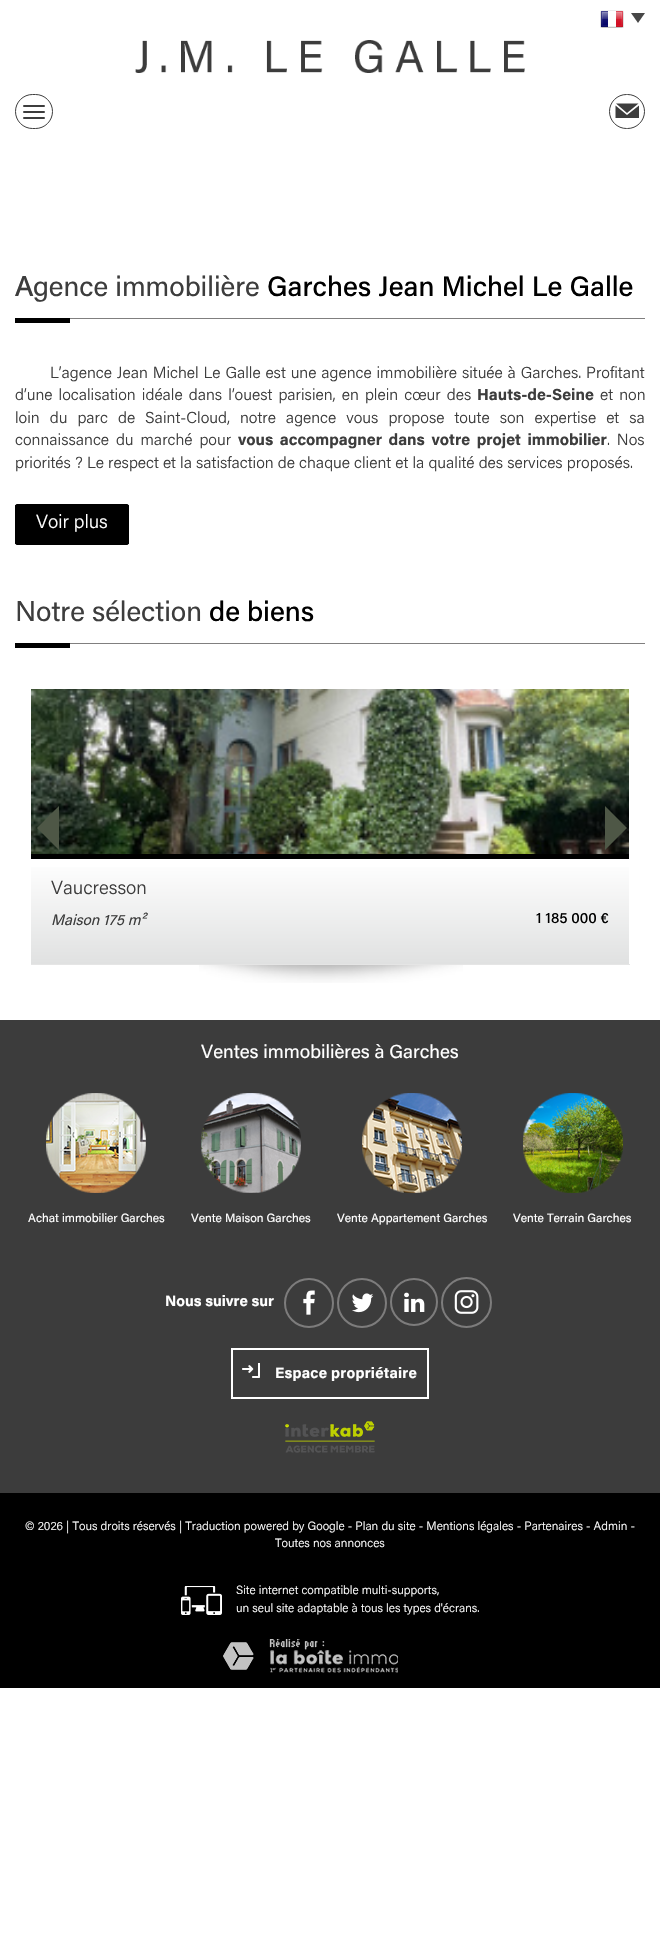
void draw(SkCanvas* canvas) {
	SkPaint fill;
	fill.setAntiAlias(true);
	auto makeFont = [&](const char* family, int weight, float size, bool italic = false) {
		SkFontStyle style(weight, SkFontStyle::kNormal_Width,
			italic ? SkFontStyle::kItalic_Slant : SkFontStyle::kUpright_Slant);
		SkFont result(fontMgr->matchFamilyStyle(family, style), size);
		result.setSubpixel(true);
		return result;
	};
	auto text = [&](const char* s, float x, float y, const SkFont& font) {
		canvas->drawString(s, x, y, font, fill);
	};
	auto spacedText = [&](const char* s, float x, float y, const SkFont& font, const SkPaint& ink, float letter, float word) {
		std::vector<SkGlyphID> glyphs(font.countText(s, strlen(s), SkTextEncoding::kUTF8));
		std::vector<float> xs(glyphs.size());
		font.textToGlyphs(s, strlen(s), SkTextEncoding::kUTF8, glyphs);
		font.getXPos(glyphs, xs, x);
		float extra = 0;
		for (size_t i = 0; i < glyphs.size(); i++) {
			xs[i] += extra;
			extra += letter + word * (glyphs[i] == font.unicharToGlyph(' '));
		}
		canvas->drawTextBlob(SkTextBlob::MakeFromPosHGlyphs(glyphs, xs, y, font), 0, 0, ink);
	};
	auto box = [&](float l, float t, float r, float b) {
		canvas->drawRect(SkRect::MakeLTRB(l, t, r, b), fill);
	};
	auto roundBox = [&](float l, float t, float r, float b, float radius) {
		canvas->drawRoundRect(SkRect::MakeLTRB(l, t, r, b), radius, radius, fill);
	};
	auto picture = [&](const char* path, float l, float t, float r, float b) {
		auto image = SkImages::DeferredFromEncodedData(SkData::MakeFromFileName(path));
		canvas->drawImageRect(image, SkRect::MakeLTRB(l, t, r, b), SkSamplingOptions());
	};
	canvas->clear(0xFFFFFFFF);
	fill.setStyle(SkPaint::kStroke_Style);
	fill.setStrokeWidth(1);
	fill.setColor(0xFF3D3D3D);
	canvas->drawRoundRect(SkRect::MakeLTRB(15.5f, 94.5f, 52.5f, 128.5f), 17, 17, fill);
	fill.setStyle(SkPaint::kFill_Style);
	roundBox(23, 105, 45, 107, 1);
	roundBox(23, 111, 45, 113, 1);
	roundBox(23, 117, 45, 119, 1);
	picture("image0.png", 600, 10, 624, 28);
	fill.setColor(0xFF474747);
	canvas->drawPath(SkPathBuilder().moveTo(631, 13).lineTo(645, 13).lineTo(638, 23).close().detach(), fill);
	picture("image1.png", 135, 40, 525, 73);
	fill.setStyle(SkPaint::kStroke_Style);
	fill.setColor(0xFF3D3D3D);
	canvas->drawRoundRect(SkRect::MakeLTRB(609.5f, 94.5f, 644.5f, 128.5f), 17, 17, fill);
	fill.setStyle(SkPaint::kFill_Style);
	canvas->drawPath(SkPathBuilder().moveTo(616, 103.5f).lineTo(638.5f, 103.5f).lineTo(627, 113).close().moveTo(615.5f, 105.5f).lineTo(615.5f, 118).lineTo(639, 118).lineTo(639, 105.5f).lineTo(627, 115).close().detach(), fill);
	fill.setColor(0xFF807F7F);
	box(70, 318, 645, 319);
	fill.setColor(0xFF000000);
	box(15, 318, 70, 323);
	canvas->save();
	canvas->clipPath(SkPathBuilder().moveTo(17, 504).lineTo(127, 504).cubicTo(128, 504, 129, 505, 129, 506).lineTo(129, 543).cubicTo(129, 544, 128, 545, 127, 545).lineTo(17, 545).cubicTo(16, 545, 15, 544, 15, 543).lineTo(15, 506).cubicTo(15, 505, 16, 504, 17, 504).close().detach(), true);
	box(15, 505, 129, 544);
	canvas->restore();
	fill.setStyle(SkPaint::kStroke_Style);
	canvas->drawRoundRect(SkRect::MakeLTRB(15.5f, 504.5f, 128.5f, 544.5f), 1.5f, 1.5f, fill);
	fill.setStyle(SkPaint::kFill_Style);
	fill.setColor(0xFF807F7F);
	box(70, 643, 645, 644);
	fill.setColor(0xFF000000);
	box(15, 643, 70, 648);
	picture("image2.png", 31, 689, 629, 854);
	fill.setColor(0xFF4E5746);
	canvas->drawPath(SkPathBuilder().moveTo(59, 806).lineTo(59, 850).lineTo(37, 828).close().detach(), fill);
	canvas->drawPath(SkPathBuilder().moveTo(605, 850).lineTo(605, 806).lineTo(627, 828).close().detach(), fill);
	fill.setColor(0xFFE5E5E5);
	box(30, 964, 630, 965);
	fill.setColor(0xFFFFFFFF);
	box(30, 964, 31, 965);
	{
		const SkColor colors[] = {0xFFFFFFFF, 0xFFE0E1E1};
		const float stops[] = {0, 1};
		const SkPoint ends[] = {{330, 859}, {330, 964}};
		fill.setShader(SkGradientShader::MakeLinear(ends, colors, stops, 2, SkTileMode::kClamp));
		fill.setAlpha(255);
	}
	box(31, 867, 629, 964);
	fill.setShader(nullptr);
	fill.setColor(0xFF000000);
	box(31, 854, 629, 859);
	picture("image3.png", 199, 965, 463, 983);
	fill.setColor(0xFF3C3C3C);
	box(0, 1020, 660, 1493);
	picture("image4.png", 46, 1093, 146, 1193);
	picture("image5.png", 201, 1093, 301, 1193);
	picture("image6.png", 362, 1093, 462, 1193);
	picture("image7.png", 523, 1093, 623, 1193);
	fill.setStyle(SkPaint::kStroke_Style);
	fill.setStrokeWidth(2);
	fill.setColor(0xFF7D7C7C);
	canvas->drawCircle(309, 1303, 24, fill);
	picture("image8.png", 303, 1290, 315, 1315);
	canvas->drawCircle(362, 1303, 24, fill);
	picture("image9.png", 352, 1293, 374, 1313);
	canvas->drawCircle(414, 1302, 23, fill);
	picture("image10.png", 404, 1292, 425, 1312);
	canvas->drawCircle(466.5f, 1302.5f, 24.5f, fill);
	picture("image11.png", 454, 1290, 479, 1314);
	fill.setColor(0xFFFFFFFF);
	canvas->drawRect(SkRect::MakeLTRB(232, 1349, 428, 1398), fill);
	picture("image12.png", 242, 1363, 260, 1378);
	picture("image13.png", 285, 1421, 375, 1453);
	fill.setStyle(SkPaint::kFill_Style);
	fill.setColor(0xFF000000);
	box(0, 1493, 660, 1688);
	picture("image14.png", 181, 1586, 222, 1615);
	picture("image15.png", 223, 1639, 398, 1673);
	auto font1 = makeFont("Noto Sans", 500, 28);
	fill.setColor(0xFF3D3D3D);
	text("A", 15, 296, font1);
	auto font2 = makeFont("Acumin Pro", 400, 28);
	text("gence immobilière", 33, 296, font2);
	auto font3 = makeFont("Acumin Pro", 500, 28);
	fill.setColor(0xFF000000);
	text("Garches Jean Michel Le Galle", 267, 296, font3);
	auto font4 = makeFont("Acumin Pro", 300, 16);
	fill.setColor(0xFF3D3D3D);
	spacedText("L’agence Jean Michel Le Galle est une agence immobilière située à Garches. Profitant", 50, 378, font4, fill, 0, 0.75f);
	spacedText("d’une localisation idéale dans l’ouest parisien, en plein cœur des", 15, 400, font4, fill, 0, 2);
	auto font5 = makeFont("Acumin Pro", 700, 16);
	text("Hauts-de-Seine", 477, 400, font5);
	spacedText("et non", 600, 400, font4, fill, 0, 2);
	spacedText("loin du parc de Saint-Cloud, notre agence vous propose toute son expertise et sa", 15, 423, font4, fill, 0, 5.9f);
	spacedText("connaissance du marché pour", 15, 445, font4, fill, 0, 2.75f);
	spacedText("vous accompagner dans votre projet immobilier", 238, 445, font5, fill, 0, 2.75f);
	spacedText(". Nos", 607, 445, font4, fill, 0, 2.75f);
	text("priorités ? Le respect et la satisfaction de chaque client et la qualité des services proposés.", 15, 468, font4);
	auto font6 = makeFont("Acumin Pro", 300, 19);
	fill.setColor(0xFFFFFFFF);
	text("Voir plus", 36, 528, font6);
	auto font7 = makeFont("Noto Sans", 400, 28);
	fill.setColor(0xFF3D3D3D);
	text("N", 15, 621, font7);
	text("otre sélection", 36, 621, font2);
	fill.setColor(0xFF000000);
	text("de biens", 209, 621, font3);
	fill.setColor(0xFF3D3D3D);
	text("Vaucresson", 51, 894, font6);
	auto font8 = makeFont("Acumin Pro", 400, 15, true);
	text("Maison 175 m²", 51, 925, font8);
	auto font9 = makeFont("Acumin Pro", 500, 15);
	fill.setColor(0xFF000000);
	text("1 185 000 €", 536, 923, font9);
	auto font10 = makeFont("Acumin Pro", 400, 18.9f);
	fill.setColor(0xFFFFFFFF);
	text("Ventes immobilières à Garches", 201, 1058, font10);
	auto font11 = makeFont("Acumin Pro", 400, 12);
	text("Achat immobilier Garches", 28, 1222, font11);
	text("Vente Maison Garches", 191, 1222, font11);
	text("Vente Appartement Garches", 337, 1222, font11);
	text("Vente Terrain Garches", 513, 1222, font11);
	auto font12 = makeFont("Acumin Pro", 700, 15);
	text("Nous suivre sur", 165, 1306, font12);
	spacedText("Espace propriétaire", 275, 1378, font12, fill, 0.25f, 0);
	auto font13 = makeFont("Acumin Pro", 300, 12);
	text("© 2026 | Tous droits réservés | Traduction powered by Google - Plan du site - Mentions légales - Partenaires - Admin -", 25, 1530, font13);
	text("Toutes nos annonces", 275, 1547, font13);
	text("Site internet compatible multi-supports,", 236, 1594, font13);
	text("un seul site adaptable à tous les types d'écrans.", 236, 1612, font13);
}
